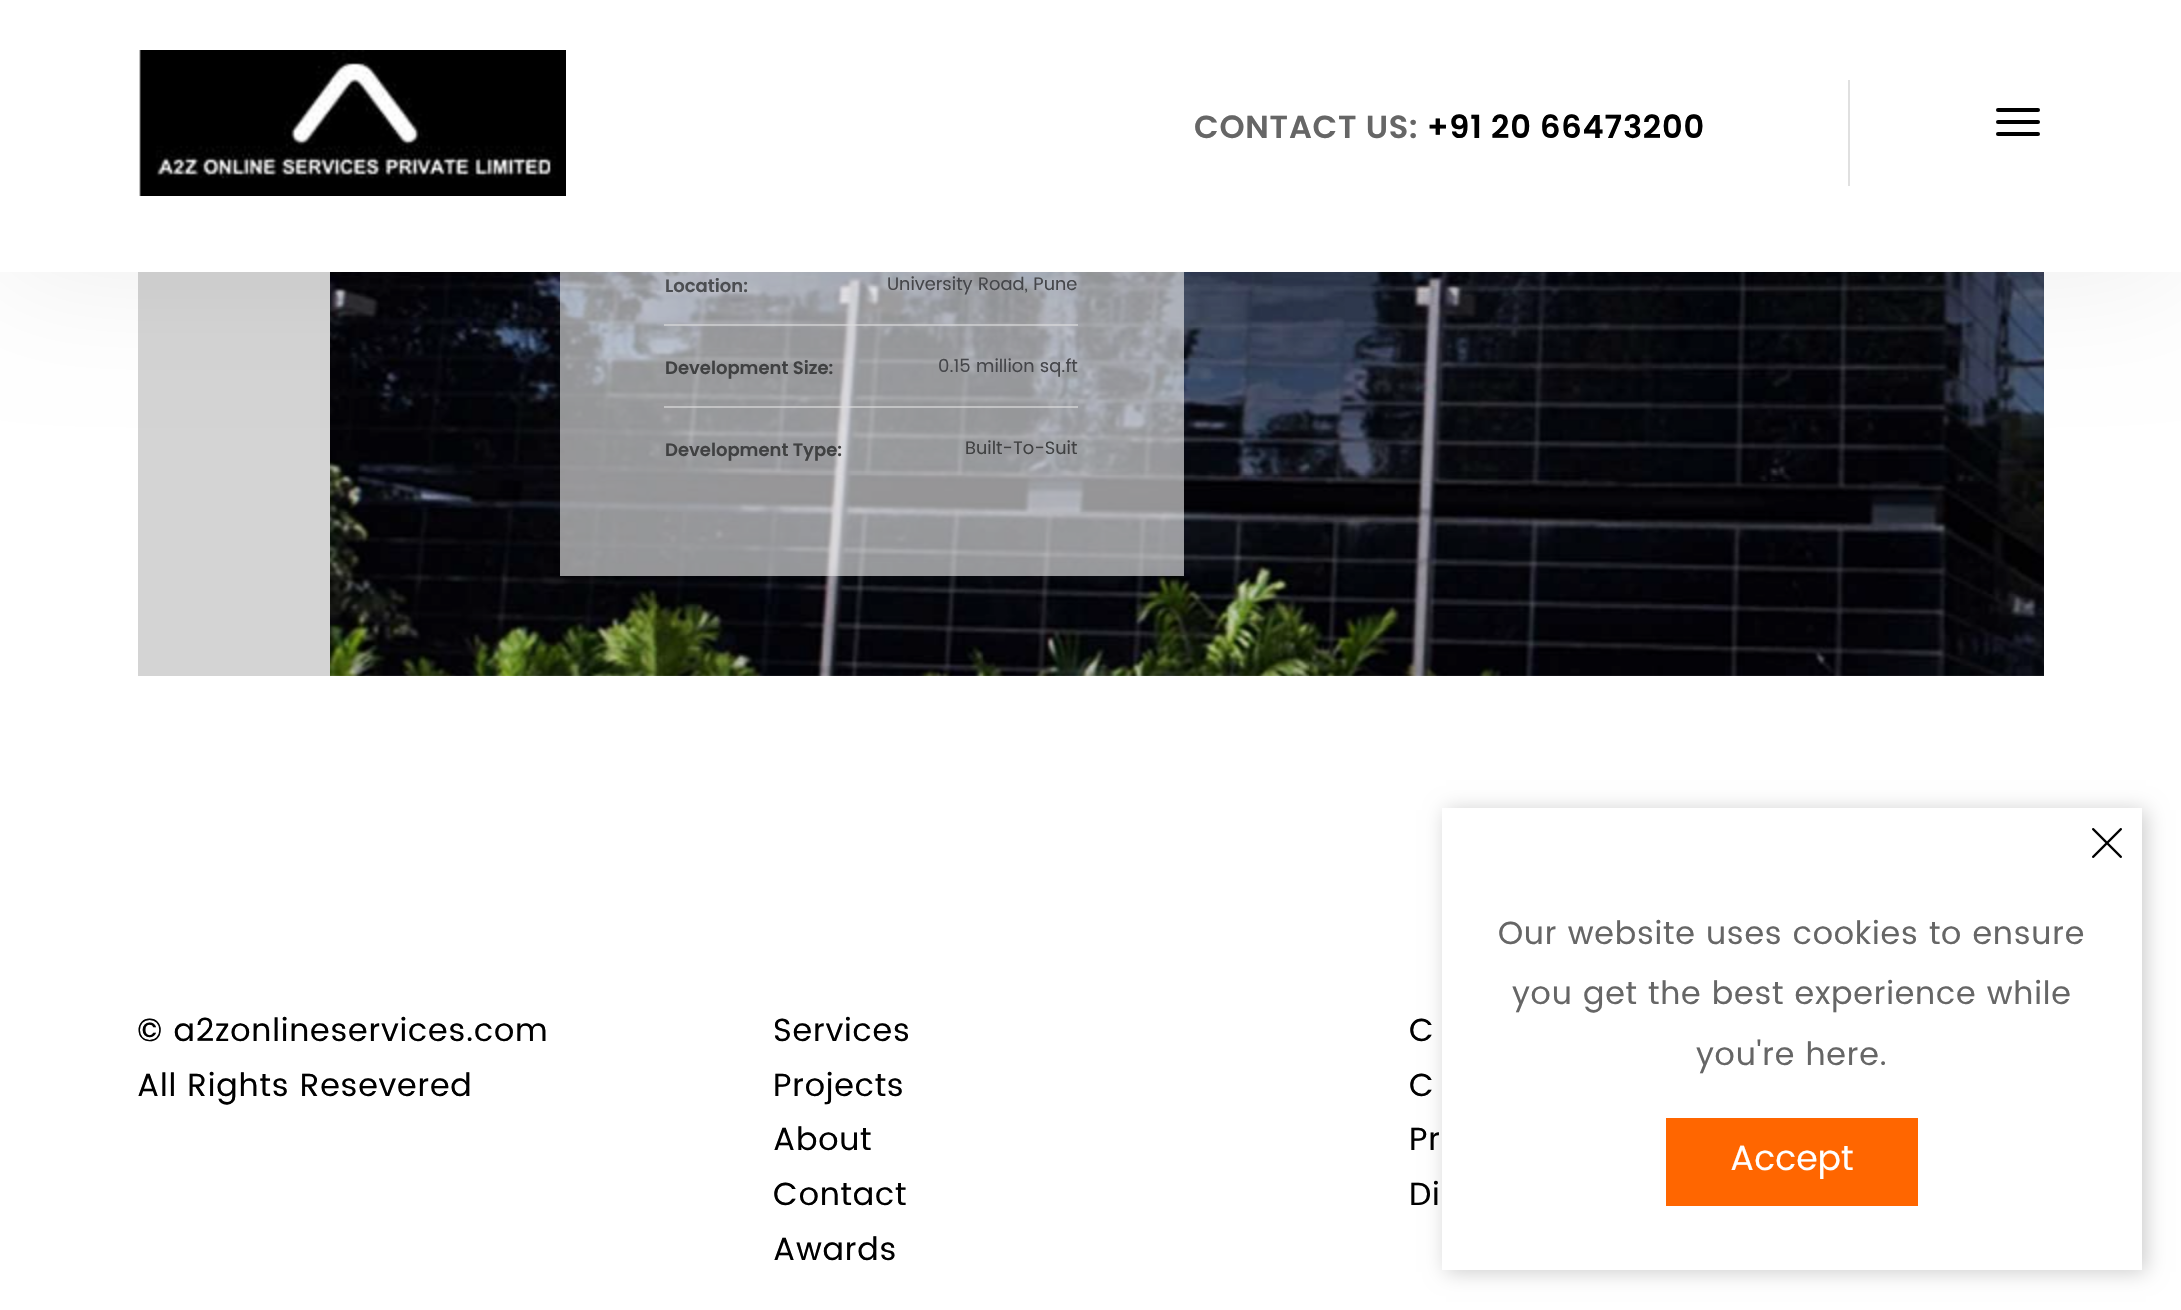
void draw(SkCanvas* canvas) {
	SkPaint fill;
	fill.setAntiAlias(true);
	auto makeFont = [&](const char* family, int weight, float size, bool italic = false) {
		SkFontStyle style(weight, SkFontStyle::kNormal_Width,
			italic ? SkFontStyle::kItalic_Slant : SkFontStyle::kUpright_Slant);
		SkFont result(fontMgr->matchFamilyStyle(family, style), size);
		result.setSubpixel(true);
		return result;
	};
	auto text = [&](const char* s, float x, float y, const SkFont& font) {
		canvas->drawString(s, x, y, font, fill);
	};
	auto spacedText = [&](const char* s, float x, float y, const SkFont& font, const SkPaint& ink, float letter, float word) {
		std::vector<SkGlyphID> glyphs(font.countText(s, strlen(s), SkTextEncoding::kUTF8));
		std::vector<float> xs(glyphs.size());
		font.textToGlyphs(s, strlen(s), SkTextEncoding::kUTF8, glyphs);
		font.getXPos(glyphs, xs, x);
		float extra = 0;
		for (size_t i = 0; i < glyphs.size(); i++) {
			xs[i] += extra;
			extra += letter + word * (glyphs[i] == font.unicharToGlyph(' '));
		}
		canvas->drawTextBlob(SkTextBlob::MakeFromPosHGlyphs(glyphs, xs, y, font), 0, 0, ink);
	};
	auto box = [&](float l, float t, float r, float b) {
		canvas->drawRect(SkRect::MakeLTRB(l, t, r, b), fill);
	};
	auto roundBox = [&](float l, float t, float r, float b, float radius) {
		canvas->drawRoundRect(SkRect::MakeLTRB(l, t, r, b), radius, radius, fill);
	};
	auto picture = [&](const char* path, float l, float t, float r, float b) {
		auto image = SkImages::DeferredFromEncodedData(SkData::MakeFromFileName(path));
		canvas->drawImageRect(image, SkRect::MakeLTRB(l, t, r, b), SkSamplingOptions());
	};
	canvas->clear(0xFFFFFFFF);
	fill.setColor(0xFFD4D4D4);
	box(138, 272, 2044, 676);
	picture("image1.png", 330, 272, 2044, 676);
	fill.setColor(0x94FFFFFF);
	box(560, 272, 1184, 576);
	fill.setColor(0x94E1E1E1);
	box(664, 324, 1078, 326);
	box(664, 406, 1078, 408);
	fill.setColor(0x12000000);
	fill.setMaskFilter(SkMaskFilter::MakeBlur(kNormal_SkBlurStyle, 65));
	canvas->drawRect(SkRect::MakeLTRB(0, 0, 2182, 272), fill);
	fill.setMaskFilter(nullptr);
	fill.setColor(0xFFFFFFFF);
	box(0, 0, 2181, 272);
	picture("image0.png", 139, 50, 566, 196);
	fill.setColor(0xFFE0E0E0);
	box(1848, 80, 1850, 186);
	fill.setColor(0xFF000000);
	roundBox(1996, 108, 2040, 112, 2);
	roundBox(1996, 120, 2040, 124, 2);
	roundBox(1996, 132, 2040, 136, 2);
	fill.setColor(0x33000000);
	fill.setMaskFilter(SkMaskFilter::MakeBlur(kNormal_SkBlurStyle, 10));
	canvas->drawRect(SkRect::MakeLTRB(1446, 810, 2146, 1272), fill);
	fill.setMaskFilter(nullptr);
	fill.setColor(0xFFFFFFFF);
	box(1442, 808, 2142, 1270);
	picture("image2.png", 2092, 828, 2122, 858);
	fill.setColor(0xFFFF6600);
	box(1666, 1118, 1918, 1206);
	auto font1 = makeFont("Poppins", 600, 32);
	fill.setColor(0xFF666666);
	spacedText("CONTACT US:", 1194, 138, font1, fill, 0.8f, 0);
	fill.setColor(0xFF000000);
	spacedText("+91 20 66473200", 1427, 138, font1, fill, 0.8f, 0);
	auto font2 = makeFont("Poppins", 600, 18);
	fill.setColor(0xFF4C4E52);
	text("Location:", 665, 292, font2);
	auto font3 = makeFont("Poppins", 400, 18);
	fill.setColor(0xFF45464A);
	text("University Road, Pune", 887, 290, font3);
	fill.setColor(0xFF404142);
	text("Development Size:", 665, 374, font2);
	fill.setColor(0xFF45464A);
	text("0.15 million sq.ft", 938, 372, font3);
	fill.setColor(0xFF404142);
	text("Development Type:", 665, 456, font2);
	text("Built-To-Suit", 965, 454, font3);
	auto font4 = makeFont("Poppins", 400, 32);
	fill.setColor(0xFF000000);
	spacedText("© a2zonlineservices.com", 137, 1041, font4, fill, 0.8f, 0);
	spacedText("All Rights Resevered", 137, 1096, font4, fill, 0.8f, 0);
	spacedText("Services", 773, 1041, font4, fill, 0.8f, 0);
	spacedText("Projects", 773, 1096, font4, fill, 0.8f, 0);
	spacedText("About", 773, 1150, font4, fill, 0.8f, 0);
	spacedText("Contact", 773, 1205, font4, fill, 0.8f, 0);
	spacedText("Awards", 773, 1260, font4, fill, 0.8f, 0);
	spacedText("C", 1409, 1041, font4, fill, 0.8f, 0);
	spacedText("C", 1409, 1096, font4, fill, 0.8f, 0);
	spacedText("Pr", 1409, 1150, font4, fill, 0.8f, 0);
	spacedText("Di", 1409, 1205, font4, fill, 0.8f, 0);
	fill.setColor(0xFF666666);
	spacedText("Our website uses cookies to ensure", 1498, 944, font4, fill, 0.8f, 0);
	spacedText("you get the best experience while", 1512, 1004, font4, fill, 0.8f, 0);
	spacedText("you're here.", 1696, 1065, font4, fill, 0.8f, 0);
	auto font5 = makeFont("Poppins", 400, 35);
	fill.setColor(0xFFFFFFFF);
	text("Accept", 1730, 1170, font5);
}
